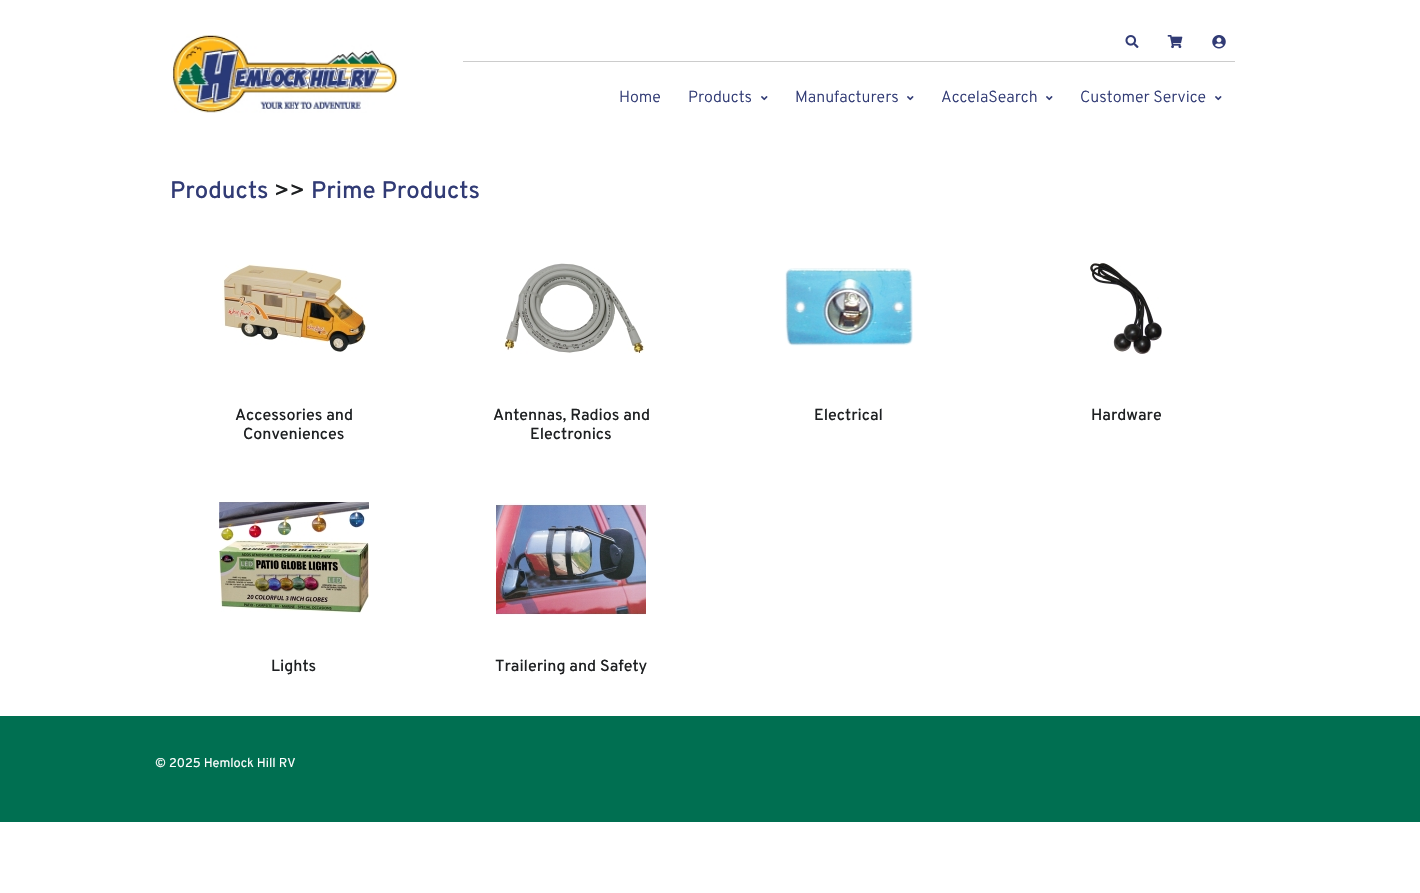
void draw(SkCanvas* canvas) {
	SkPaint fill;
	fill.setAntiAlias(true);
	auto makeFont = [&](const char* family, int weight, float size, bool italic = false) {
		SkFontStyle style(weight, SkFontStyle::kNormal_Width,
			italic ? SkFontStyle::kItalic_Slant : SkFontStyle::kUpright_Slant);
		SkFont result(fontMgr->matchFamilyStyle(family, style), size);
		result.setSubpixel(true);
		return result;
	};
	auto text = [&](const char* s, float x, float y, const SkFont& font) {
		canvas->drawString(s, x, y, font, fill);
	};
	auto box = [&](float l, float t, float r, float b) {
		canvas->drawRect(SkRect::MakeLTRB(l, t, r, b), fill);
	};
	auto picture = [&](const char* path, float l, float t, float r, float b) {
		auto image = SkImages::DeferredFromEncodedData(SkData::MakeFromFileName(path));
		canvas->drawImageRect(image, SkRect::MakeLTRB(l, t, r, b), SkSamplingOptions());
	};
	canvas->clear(0xFFFFFFFF);
	picture("image0.png", 171, 34, 398, 113);
	fill.setColor(0xFFCCCCCC);
	box(463, 61, 1235, 62);
	picture("image1.png", 1125, 35, 1139, 48);
	picture("image2.png", 1167, 35, 1183, 49);
	picture("image3.png", 1212, 35, 1226, 49);
	picture("image4.png", 761, 96, 768, 101);
	picture("image4.png", 907, 96, 914, 101);
	picture("image4.png", 1046, 96, 1053, 101);
	picture("image4.png", 1215, 96, 1222, 101);
	picture("image5.png", 222, 264, 367, 352);
	picture("image6.png", 503, 263, 645, 354);
	picture("image7.png", 785, 268, 913, 346);
	picture("image8.png", 1090, 263, 1162, 354);
	picture("image9.png", 219, 502, 369, 613);
	picture("image10.png", 496, 503, 646, 615);
	fill.setColor(0xFF006F51);
	box(0, 716, 1420, 822);
	auto font1 = makeFont("Overpass", 300, 16);
	fill.setColor(0xFF313B75);
	text("Home", 619, 102, font1);
	text("Products", 688, 102, font1);
	text("Manufacturers", 795, 102, font1);
	text("AccelaSearch", 941, 102, font1);
	text("Customer Service", 1080, 102, font1);
	auto font2 = makeFont("Overpass", 500, 24);
	text("Products", 170, 198, font2);
	fill.setColor(0xFF1E2022);
	text(">>", 274, 198, font2);
	fill.setColor(0xFF313B75);
	text("Prime Products", 311, 198, font2);
	auto font3 = makeFont("Overpass", 500, 16);
	fill.setColor(0xFF1E2022);
	text("Accessories and", 235, 420, font3);
	text("Conveniences", 243, 439, font3);
	text("Antennas, Radios and", 493, 420, font3);
	text("Electronics", 530, 439, font3);
	text("Electrical", 814, 420, font3);
	text("Hardware", 1091, 420, font3);
	text("Lights", 271, 671, font3);
	text("Trailering and Safety", 495, 671, font3);
	auto font4 = makeFont("Overpass", 400, 12.75f);
	fill.setColor(0xFFFFFFFF);
	text("© 2025 Hemlock Hill RV", 155, 767, font4);
}
